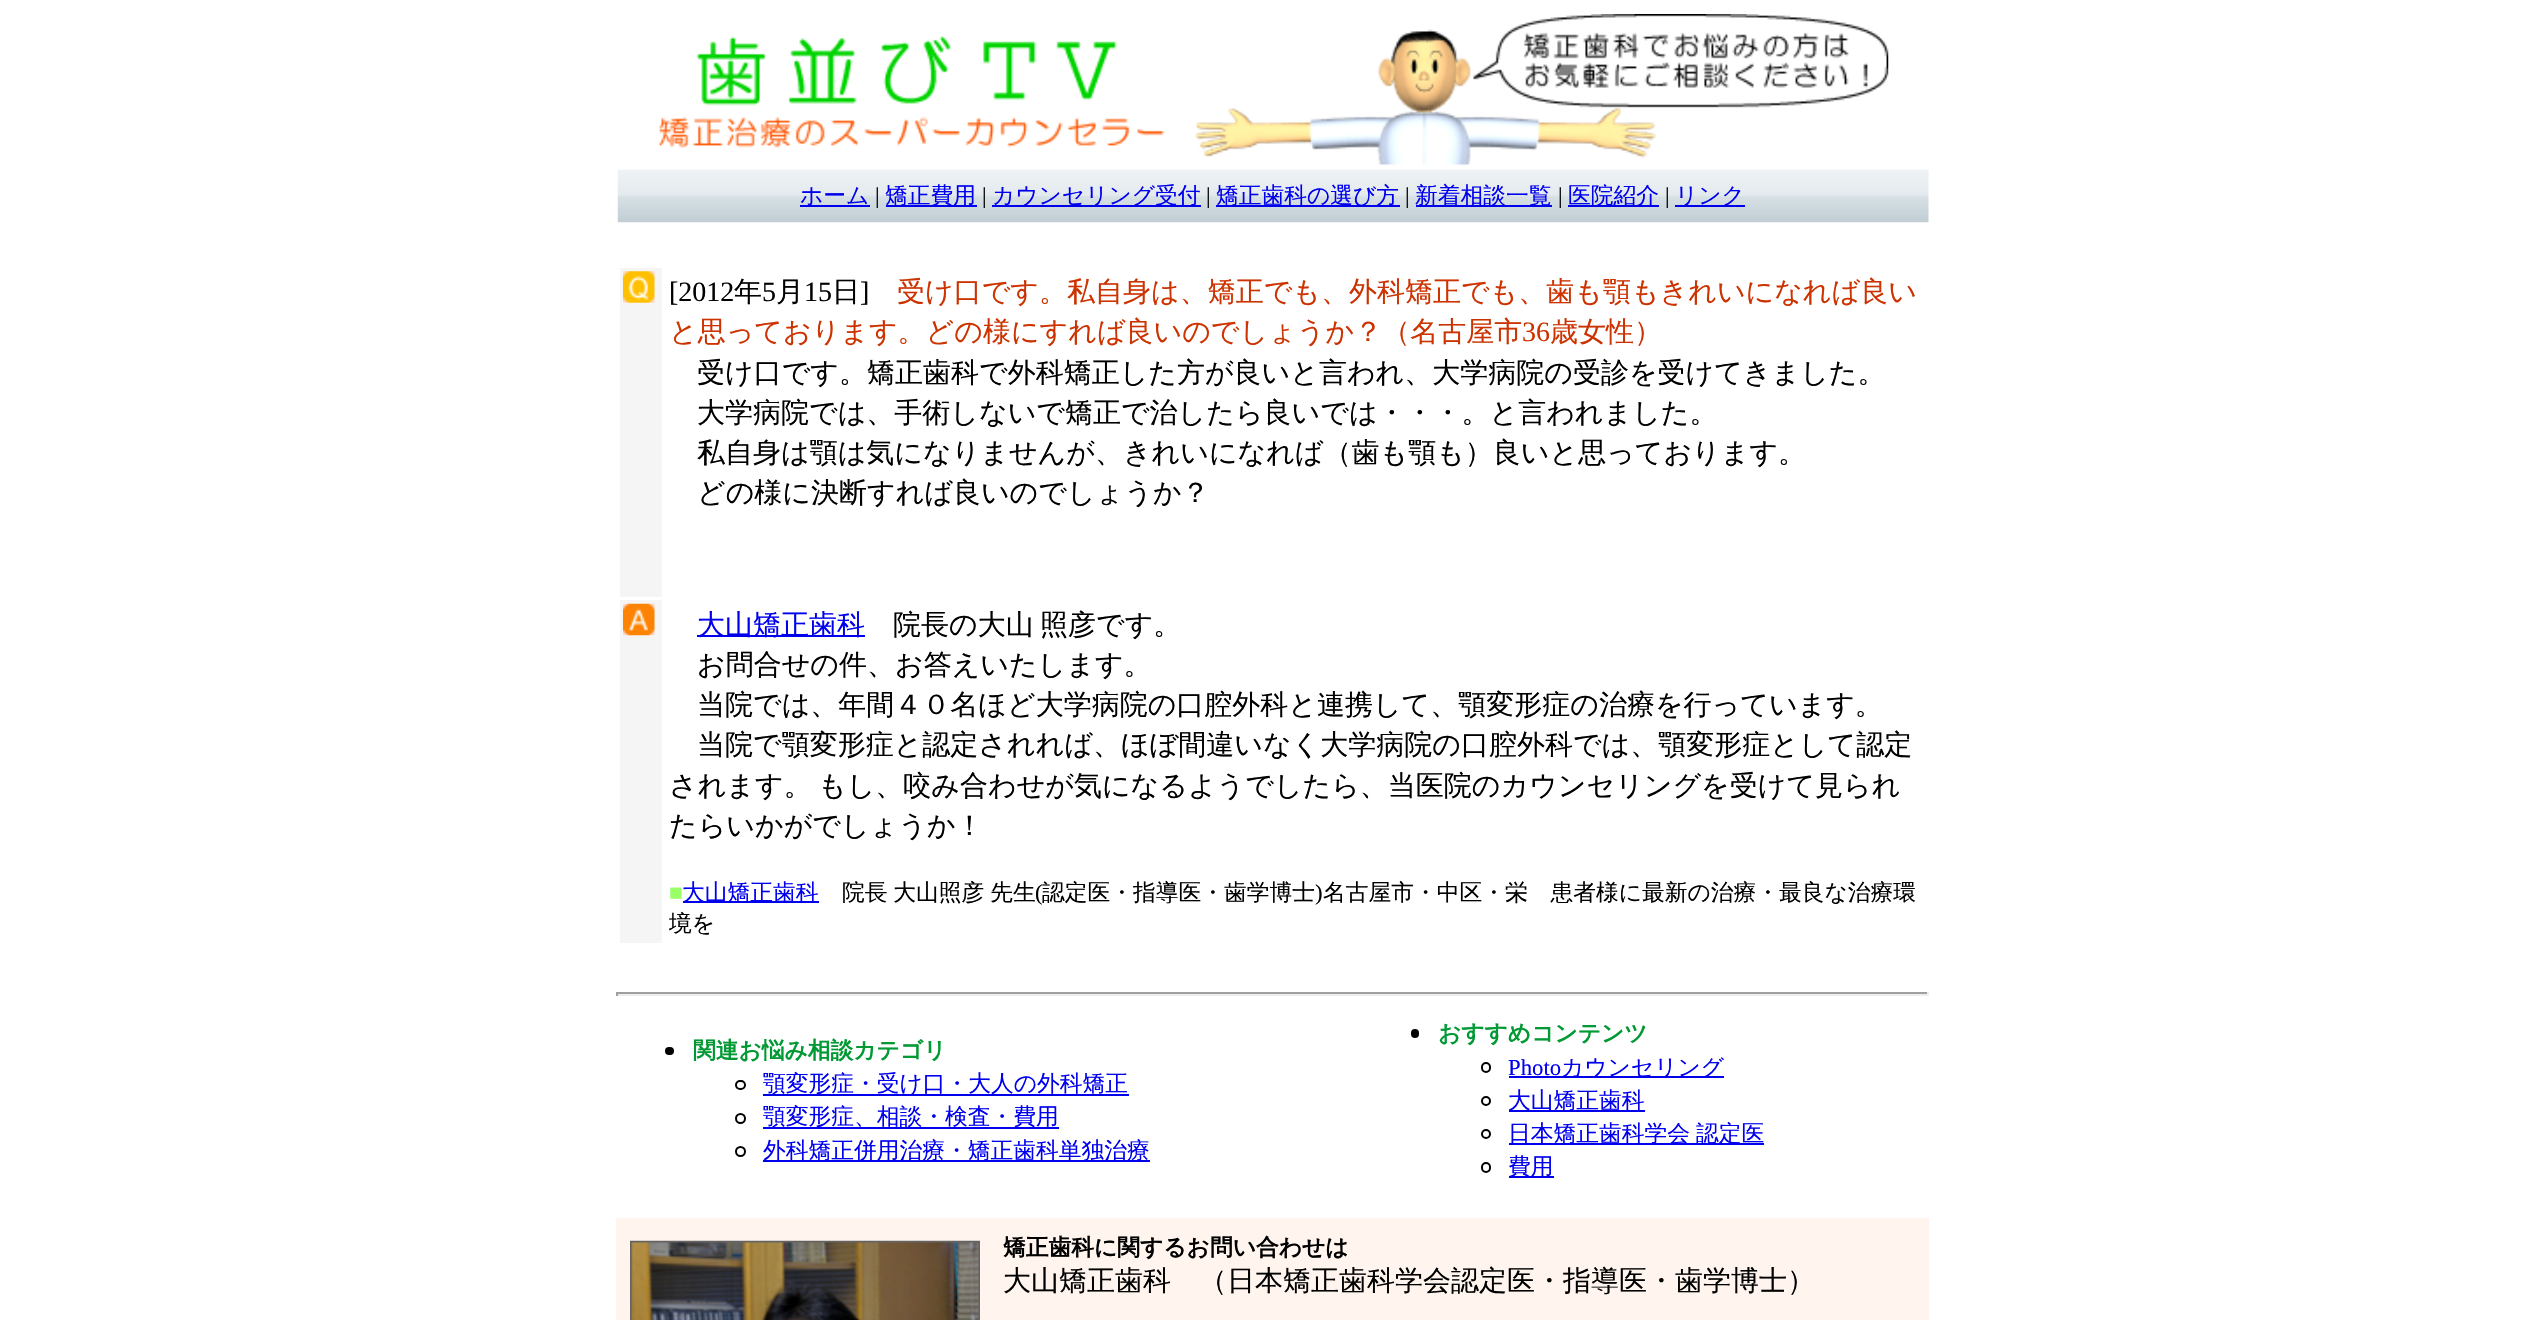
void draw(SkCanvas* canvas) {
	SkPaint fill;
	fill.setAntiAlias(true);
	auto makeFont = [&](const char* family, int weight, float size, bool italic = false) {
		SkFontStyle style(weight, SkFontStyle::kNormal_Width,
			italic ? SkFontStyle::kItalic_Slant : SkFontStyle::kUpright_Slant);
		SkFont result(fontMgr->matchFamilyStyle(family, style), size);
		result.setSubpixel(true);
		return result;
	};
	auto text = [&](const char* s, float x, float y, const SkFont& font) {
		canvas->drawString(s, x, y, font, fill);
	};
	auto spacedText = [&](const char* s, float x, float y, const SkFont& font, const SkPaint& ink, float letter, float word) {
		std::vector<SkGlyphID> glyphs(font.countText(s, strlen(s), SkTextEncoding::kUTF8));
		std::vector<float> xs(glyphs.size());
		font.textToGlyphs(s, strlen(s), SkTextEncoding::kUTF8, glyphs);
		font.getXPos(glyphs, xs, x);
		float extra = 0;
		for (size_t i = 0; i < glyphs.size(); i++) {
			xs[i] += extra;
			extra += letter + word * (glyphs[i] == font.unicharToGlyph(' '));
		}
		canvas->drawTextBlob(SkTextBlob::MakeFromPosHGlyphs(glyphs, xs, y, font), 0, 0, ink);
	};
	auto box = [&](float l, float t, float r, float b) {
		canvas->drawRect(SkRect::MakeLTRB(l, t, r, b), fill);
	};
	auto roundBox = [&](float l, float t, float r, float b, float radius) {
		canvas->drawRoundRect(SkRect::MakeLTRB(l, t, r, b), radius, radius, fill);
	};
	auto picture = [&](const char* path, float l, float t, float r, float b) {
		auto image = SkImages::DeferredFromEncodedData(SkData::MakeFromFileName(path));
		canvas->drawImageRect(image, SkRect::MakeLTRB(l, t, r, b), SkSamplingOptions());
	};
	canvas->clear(0xFFFFFFFF);
	picture("image0.png", 659, 14, 1889, 165);
	picture("image1.png", 617, 169, 1929, 223);
	fill.setColor(0xFF0000EE);
	box(800, 205, 870, 207);
	box(886, 205, 977, 207);
	box(992, 205, 1201, 207);
	box(1216, 205, 1400, 207);
	box(1416, 205, 1552, 207);
	box(1568, 205, 1659, 207);
	box(1675, 205, 1745, 207);
	fill.setColor(0xFFF5F5F5);
	box(620, 268, 662, 597);
	picture("image2.png", 623, 271, 655, 303);
	box(620, 600, 662, 943);
	picture("image3.png", 623, 603, 655, 636);
	fill.setColor(0xFF0000EE);
	box(697, 635, 865, 637);
	box(683, 901, 819, 903);
	fill.setColor(0xFF9F9F9F);
	box(616, 992, 1929, 994);
	fill.setColor(0xFFEEEEEE);
	box(1927, 992, 1929, 996);
	box(616, 994, 1929, 996);
	fill.setColor(0xFF9F9F9F);
	box(616, 992, 618, 996);
	fill.setColor(0xFF000000);
	roundBox(665, 1047, 674, 1055, 4);
	fill.setStyle(SkPaint::kStroke_Style);
	fill.setStrokeWidth(2);
	canvas->drawRoundRect(SkRect::MakeLTRB(736, 1081, 745, 1089), 4, 4, fill);
	fill.setStyle(SkPaint::kFill_Style);
	fill.setColor(0xFF0000EE);
	box(763, 1094, 1129, 1096);
	fill.setStyle(SkPaint::kStroke_Style);
	fill.setColor(0xFF000000);
	canvas->drawCircle(740.5f, 1118.5f, 4.5f, fill);
	fill.setStyle(SkPaint::kFill_Style);
	fill.setColor(0xFF0000EE);
	box(763, 1127, 1059, 1129);
	fill.setStyle(SkPaint::kStroke_Style);
	fill.setColor(0xFF000000);
	canvas->drawCircle(740.5f, 1151.5f, 4.5f, fill);
	fill.setStyle(SkPaint::kFill_Style);
	fill.setColor(0xFF0000EE);
	box(763, 1160, 1150, 1162);
	fill.setColor(0xFF000000);
	roundBox(1411, 1029, 1419, 1038, 4);
	fill.setStyle(SkPaint::kStroke_Style);
	canvas->drawRoundRect(SkRect::MakeLTRB(1482, 1063, 1490, 1072), 4, 4, fill);
	fill.setStyle(SkPaint::kFill_Style);
	fill.setColor(0xFF0000EE);
	box(1509, 1076, 1724, 1078);
	fill.setStyle(SkPaint::kStroke_Style);
	fill.setColor(0xFF000000);
	canvas->drawCircle(1486, 1101, 4, fill);
	fill.setStyle(SkPaint::kFill_Style);
	fill.setColor(0xFF0000EE);
	box(1509, 1110, 1645, 1112);
	fill.setStyle(SkPaint::kStroke_Style);
	fill.setColor(0xFF000000);
	canvas->drawCircle(1486, 1134, 4, fill);
	fill.setStyle(SkPaint::kFill_Style);
	fill.setColor(0xFF0000EE);
	box(1509, 1143, 1764, 1145);
	fill.setStyle(SkPaint::kStroke_Style);
	fill.setColor(0xFF000000);
	canvas->drawRoundRect(SkRect::MakeLTRB(1482, 1163, 1490, 1172), 4, 4, fill);
	fill.setStyle(SkPaint::kFill_Style);
	fill.setColor(0xFF0000EE);
	box(1509, 1176, 1554, 1178);
	fill.setColor(0xFFFFF5EE);
	box(616, 1218, 1929, 1320);
	picture("image4.png", 630, 1240, 980, 1320);
	auto font1 = makeFont("WenQuanYi Zen Hei", 500, 22.75f);
	fill.setColor(0xFF0000EE);
	text("ホーム", 800, 203, font1);
	auto font2 = makeFont("Liberation Serif", 400, 22.75f);
	fill.setColor(0xFF000000);
	text("|", 875, 203, font2);
	fill.setColor(0xFF0000EE);
	text("矯正費用", 885, 203, font1);
	fill.setColor(0xFF000000);
	text("|", 982, 203, font2);
	fill.setColor(0xFF0000EE);
	text("カウンセリング受付", 992, 203, font1);
	fill.setColor(0xFF000000);
	text("|", 1206, 203, font2);
	fill.setColor(0xFF0000EE);
	text("矯正歯科の選び方", 1216, 203, font1);
	fill.setColor(0xFF000000);
	text("|", 1405, 203, font2);
	fill.setColor(0xFF0000EE);
	text("新着相談一覧", 1415, 203, font1);
	fill.setColor(0xFF000000);
	text("|", 1558, 203, font2);
	fill.setColor(0xFF0000EE);
	text("医院紹介", 1568, 203, font1);
	fill.setColor(0xFF000000);
	text("|", 1665, 203, font2);
	fill.setColor(0xFF0000EE);
	text("リンク", 1675, 203, font1);
	auto font3 = makeFont("Liberation Serif", 400, 28);
	fill.setColor(0xFF000000);
	text("[2012", 669, 301, font3);
	auto font4 = makeFont("WenQuanYi Zen Hei", 500, 28);
	text("年", 734, 301, font4);
	text("5", 762, 301, font3);
	text("月", 776, 301, font4);
	text("15", 804, 301, font3);
	text("日", 832, 301, font4);
	text("]", 860, 301, font3);
	fill.setColor(0xFFCC3300);
	text("受け口です。私自身は、矯正でも、外科矯正でも、歯も顎もきれいになれば良い", 897, 301, font4);
	text("と思っております。どの様にすれば良いのでしょうか？（名古屋市", 669, 341, font4);
	text("36", 1522, 341, font3);
	text("歳女性）", 1550, 341, font4);
	fill.setColor(0xFF000000);
	text("受け口です。矯正歯科で外科矯正した方が良いと言われ、大学病院の受診を受けてきました。", 697, 382, font4);
	text("大学病院では、手術しないで矯正で治したら良いでは・・・。と言われました。", 697, 422, font4);
	text("私自身は顎は気になりませんが、きれいになれば（歯も顎も）良いと思っております。", 697, 462, font4);
	text("どの様に決断すれば良いのでしょうか？", 697, 502, font4);
	fill.setColor(0xFF0000EE);
	text("大山矯正歯科", 697, 634, font4);
	fill.setColor(0xFF000000);
	text("院長の大山", 893, 634, font4);
	text("照彦です。", 1040, 634, font4);
	text("お問合せの件、お答えいたします。", 697, 674, font4);
	text("当院では、年間４０名ほど大学病院の口腔外科と連携して、顎変形症の治療を行っています。", 697, 714, font4);
	text("当院で顎変形症と認定されれば、ほぼ間違いなく大学病院の口腔外科では、顎変形症として認定", 697, 754, font4);
	text("されます。", 669, 795, font4);
	text("もし、咬み合わせが気になるようでしたら、当医院のカウンセリングを受けて見られ", 818, 795, font4);
	text("たらいかがでしょうか！", 669, 835, font4);
	fill.setColor(0xFF99FF66);
	text("■", 669, 900, font2);
	fill.setColor(0xFF0000EE);
	text("大山矯正歯科", 682, 900, font1);
	fill.setColor(0xFF000000);
	spacedText("院長 大山照彦 先生", 842, 900, font1, fill, 0, -1);
	text("(", 1035, 900, font2);
	text("認定医・指導医・歯学博士", 1042, 900, font1);
	text(")", 1315, 900, font2);
	text("名古屋市・中区・栄　患者様に最新の治療・最良な治療環", 1323, 900, font1);
	text("境を", 669, 931, font1);
	auto font5 = makeFont("WenQuanYi Zen Hei", 700, 22.75f);
	fill.setColor(0xFF009933);
	text("関連お悩み相談カテゴリ", 693, 1058, font5);
	fill.setColor(0xFF0000EE);
	text("顎変形症・受け口・大人の外科矯正", 763, 1091, font1);
	text("顎変形症、相談・検査・費用", 763, 1124, font1);
	text("外科矯正併用治療・矯正歯科単独治療", 763, 1158, font1);
	fill.setColor(0xFF009933);
	text("おすすめコンテンツ", 1438, 1041, font5);
	fill.setColor(0xFF0000EE);
	text("Photo", 1508, 1075, font2);
	text("カウンセリング", 1561, 1075, font1);
	text("大山矯正歯科", 1508, 1108, font1);
	text("日本矯正歯科学会", 1508, 1141, font1);
	text("認定医", 1696, 1141, font1);
	text("費用", 1508, 1174, font1);
	fill.setColor(0xFF000000);
	text("矯正歯科に関するお問い合わせは", 1003, 1255, font5);
	text("大山矯正歯科　（日本矯正歯科学会認定医・指導医・歯学博士）", 1003, 1290, font4);
}
